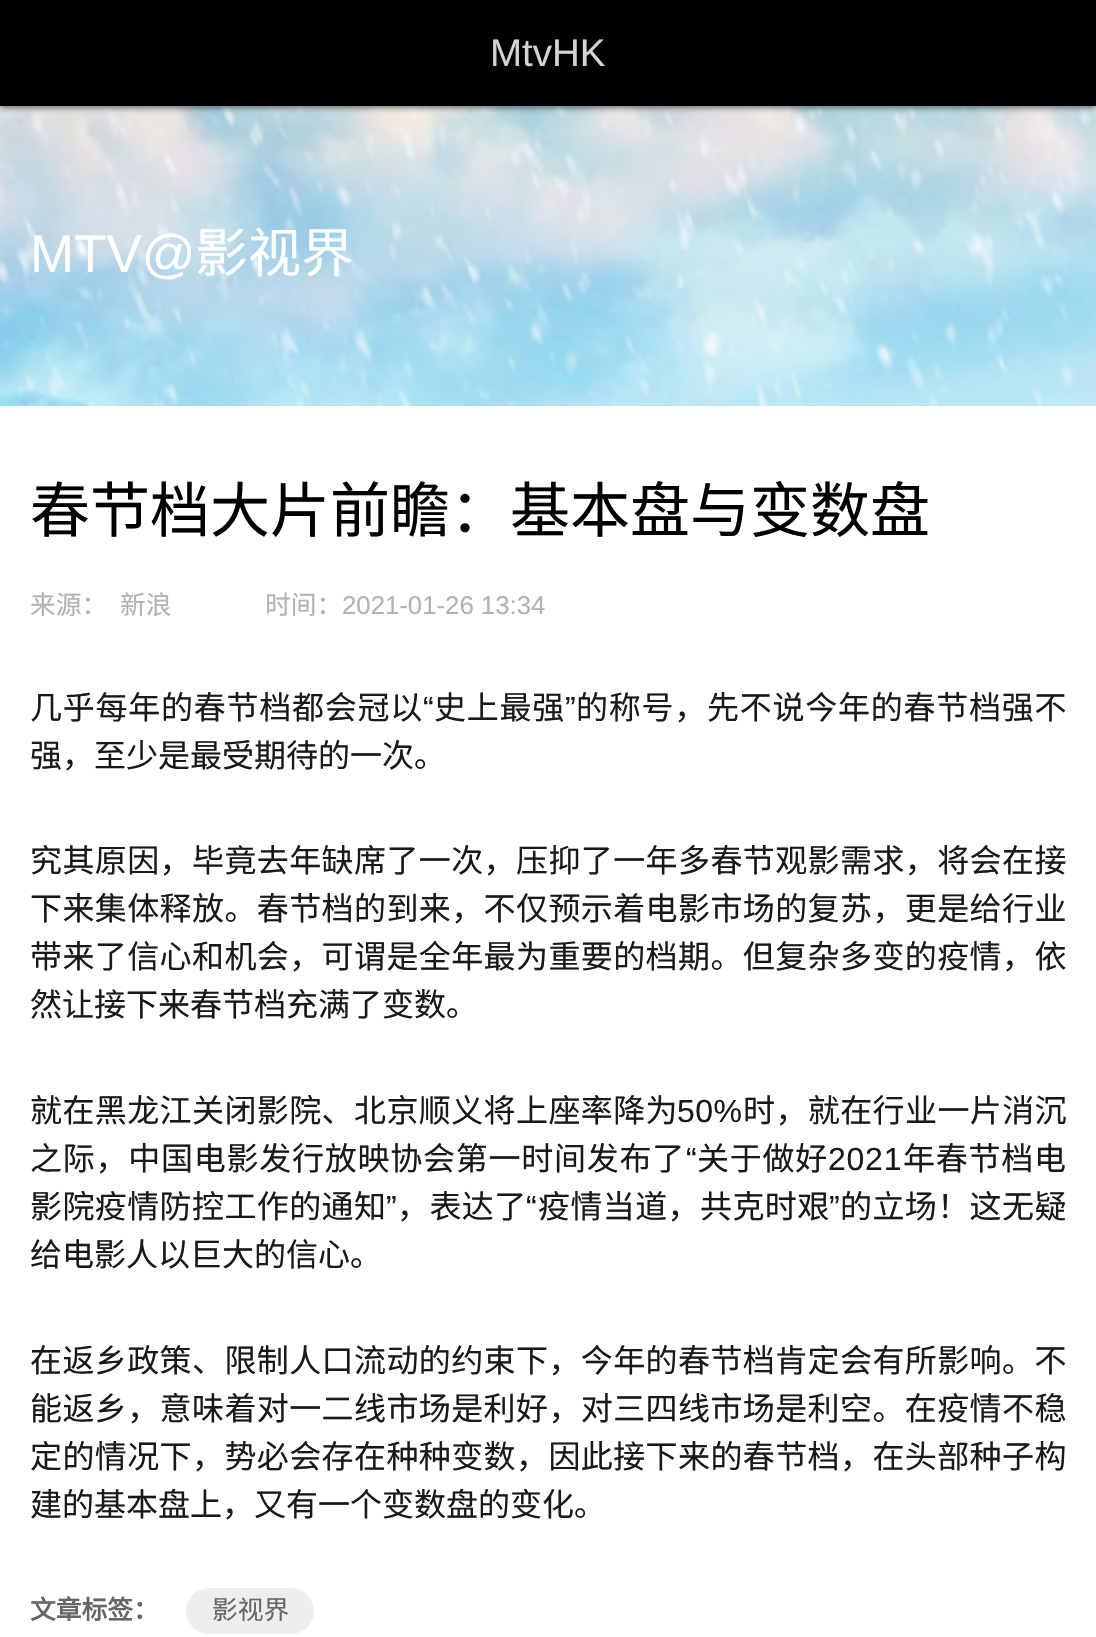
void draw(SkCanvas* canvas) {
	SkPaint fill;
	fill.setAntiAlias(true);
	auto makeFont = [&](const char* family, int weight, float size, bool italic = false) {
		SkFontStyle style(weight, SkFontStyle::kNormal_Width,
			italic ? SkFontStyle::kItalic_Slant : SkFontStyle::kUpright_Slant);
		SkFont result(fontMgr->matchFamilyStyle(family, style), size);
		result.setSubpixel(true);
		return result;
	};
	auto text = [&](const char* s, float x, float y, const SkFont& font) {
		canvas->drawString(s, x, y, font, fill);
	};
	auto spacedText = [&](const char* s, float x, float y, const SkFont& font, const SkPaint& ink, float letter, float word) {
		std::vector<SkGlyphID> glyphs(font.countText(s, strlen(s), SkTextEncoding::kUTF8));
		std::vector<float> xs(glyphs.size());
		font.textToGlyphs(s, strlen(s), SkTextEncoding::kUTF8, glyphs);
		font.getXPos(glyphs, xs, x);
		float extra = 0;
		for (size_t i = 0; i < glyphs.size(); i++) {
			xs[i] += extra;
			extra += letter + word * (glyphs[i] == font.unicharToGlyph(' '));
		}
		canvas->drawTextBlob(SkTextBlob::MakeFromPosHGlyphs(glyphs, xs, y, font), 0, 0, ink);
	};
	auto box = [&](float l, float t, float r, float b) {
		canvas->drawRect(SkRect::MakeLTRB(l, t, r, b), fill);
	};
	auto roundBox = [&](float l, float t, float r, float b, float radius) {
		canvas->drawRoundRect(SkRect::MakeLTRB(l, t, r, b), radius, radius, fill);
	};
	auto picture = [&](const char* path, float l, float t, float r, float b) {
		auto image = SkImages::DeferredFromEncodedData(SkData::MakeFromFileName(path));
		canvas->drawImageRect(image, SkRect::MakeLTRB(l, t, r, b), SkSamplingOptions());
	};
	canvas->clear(0xFFFFFFFF);
	picture("image0.png", 0, 106, 1096, 406);
	fill.setColor(0x80000000);
	fill.setMaskFilter(SkMaskFilter::MakeBlur(kNormal_SkBlurStyle, 3));
	canvas->drawRect(SkRect::MakeLTRB(0, 2, 1096, 108), fill);
	fill.setMaskFilter(nullptr);
	fill.setColor(0xFF000000);
	box(0, 0, 1096, 106);
	fill.setColor(0xFFEEEEEE);
	roundBox(186, 1588, 314, 1634, 23);
	auto font1 = makeFont("Liberation Sans", 400, 38.5f);
	fill.setColor(0xFFD3D3D3);
	text("MtvHK", 490, 66, font1);
	auto font2 = makeFont("Liberation Sans", 400, 53);
	fill.setColor(0xFFFFFFFF);
	text("MTV@", 30, 272, font2);
	auto font3 = makeFont("Noto Sans CJK SC", 400, 53);
	text("影视界", 195, 272, font3);
	auto font4 = makeFont("Noto Sans CJK SC", 400, 60);
	fill.setColor(0xFF000000);
	text("春节档大片前瞻：基本盘与变数盘", 30, 532, font4);
	auto font5 = makeFont("Noto Sans CJK SC", 400, 25.75f);
	fill.setColor(0xFFB2B2B2);
	text("来源：", 30, 614, font5);
	text("新浪", 120, 614, font5);
	text("时间：", 265, 614, font5);
	auto font6 = makeFont("Liberation Sans", 400, 25.75f);
	text("2021-01-26 13:34", 342, 614, font6);
	auto font7 = makeFont("Noto Sans CJK SC", 400, 32);
	fill.setColor(0xFF191919);
	spacedText("几乎每年的春节档都会冠以", 30, 719, font7, fill, 0.75f, 0);
	auto font8 = makeFont("Liberation Sans", 400, 32);
	spacedText("“", 423, 719, font8, fill, 0.75f, 0);
	spacedText("史上最强", 434, 719, font7, fill, 0.75f, 0);
	spacedText("”", 565, 719, font8, fill, 0.75f, 0);
	spacedText("的称号，先不说今年的春节档强不", 576, 719, font7, fill, 0.75f, 0);
	text("强，至少是最受期待的一次。", 30, 767, font7);
	spacedText("究其原因，毕竟去年缺席了一次，压抑了一年多春节观影需求，将会在接", 30, 872, font7, fill, 0.4f, 0);
	spacedText("下来集体释放。春节档的到来，不仅预示着电影市场的复苏，更是给行业", 30, 920, font7, fill, 0.4f, 0);
	spacedText("带来了信心和机会，可谓是全年最为重要的档期。但复杂多变的疫情，依", 30, 968, font7, fill, 0.4f, 0);
	text("然让接下来春节档充满了变数。", 30, 1016, font7);
	spacedText("就在黑龙江关闭影院、北京顺义将上座率降为", 30, 1122, font7, fill, 0.4f, 0);
	spacedText("50%", 677, 1122, font8, fill, 0.4f, 0);
	spacedText("时，就在行业一片消沉", 743, 1122, font7, fill, 0.4f, 0);
	spacedText("之际，中国电影发行放映协会第一时间发布了", 30, 1170, font7, fill, 0.75f, 0);
	spacedText("“", 686, 1170, font8, fill, 0.75f, 0);
	spacedText("关于做好", 697, 1170, font7, fill, 0.75f, 0);
	spacedText("2021", 828, 1170, font8, fill, 0.75f, 0);
	spacedText("年春节档电", 903, 1170, font7, fill, 0.75f, 0);
	spacedText("影院疫情防控工作的通知", 30, 1218, font7, fill, 0.4f, 0);
	spacedText("”", 386, 1218, font8, fill, 0.4f, 0);
	spacedText("，表达了", 397, 1218, font7, fill, 0.4f, 0);
	spacedText("“", 526, 1218, font8, fill, 0.4f, 0);
	spacedText("疫情当道，共克时艰", 538, 1218, font7, fill, 0.4f, 0);
	spacedText("”", 829, 1218, font8, fill, 0.4f, 0);
	spacedText("的立场！这无疑", 840, 1218, font7, fill, 0.4f, 0);
	text("给电影人以巨大的信心。", 30, 1266, font7);
	spacedText("在返乡政策、限制人口流动的约束下，今年的春节档肯定会有所影响。不", 30, 1372, font7, fill, 0.4f, 0);
	spacedText("能返乡，意味着对一二线市场是利好，对三四线市场是利空。在疫情不稳", 30, 1420, font7, fill, 0.4f, 0);
	spacedText("定的情况下，势必会存在种种变数，因此接下来的春节档，在头部种子构", 30, 1468, font7, fill, 0.4f, 0);
	text("建的基本盘上，又有一个变数盘的变化。", 30, 1516, font7);
	auto font9 = makeFont("Noto Sans CJK SC", 700, 25.75f);
	fill.setColor(0xFF666666);
	text("文章标签：", 30, 1619, font9);
	text("影视界", 212, 1619, font5);
}
